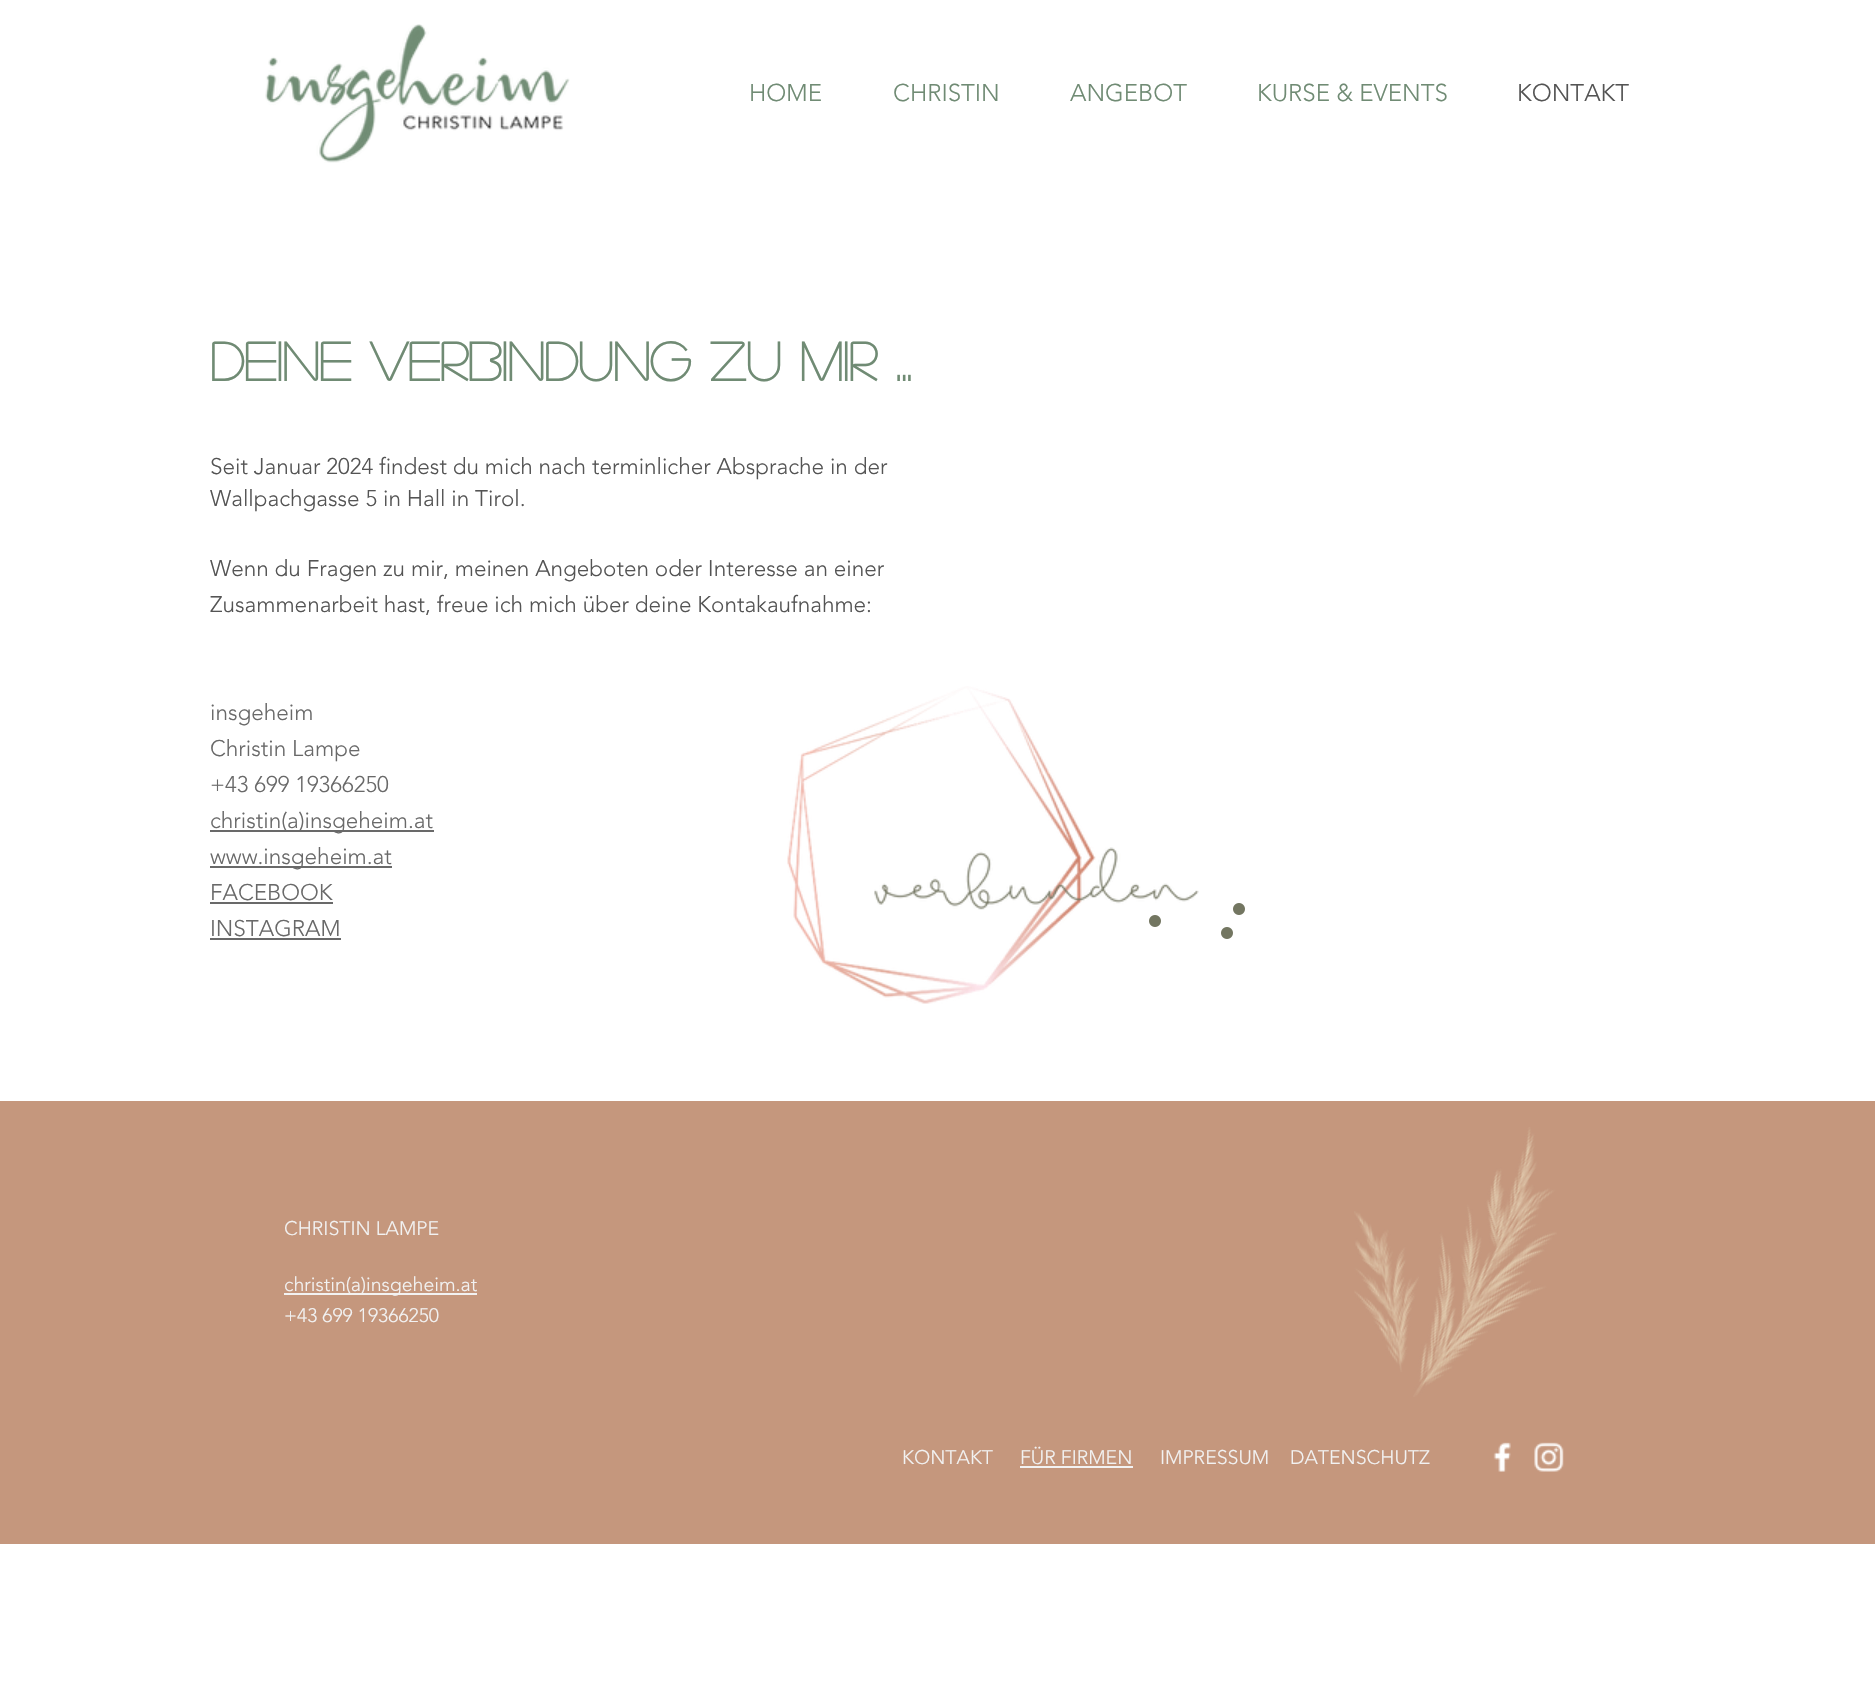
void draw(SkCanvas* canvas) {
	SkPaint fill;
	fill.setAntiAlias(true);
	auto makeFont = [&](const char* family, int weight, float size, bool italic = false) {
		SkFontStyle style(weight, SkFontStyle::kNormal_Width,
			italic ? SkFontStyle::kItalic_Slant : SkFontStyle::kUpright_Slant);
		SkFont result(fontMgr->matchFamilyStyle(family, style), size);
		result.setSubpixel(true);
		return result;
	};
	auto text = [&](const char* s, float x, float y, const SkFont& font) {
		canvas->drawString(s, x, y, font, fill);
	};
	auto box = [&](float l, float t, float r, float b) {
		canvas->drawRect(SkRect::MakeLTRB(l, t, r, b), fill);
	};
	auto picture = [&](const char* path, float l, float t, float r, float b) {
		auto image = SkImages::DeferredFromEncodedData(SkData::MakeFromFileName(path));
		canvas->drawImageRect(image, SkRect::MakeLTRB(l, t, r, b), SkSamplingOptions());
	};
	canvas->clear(0xFFFFFFFF);
	picture("image0.png", 265, 24, 570, 163);
	fill.setColor(0xFF696969);
	box(210, 830, 434, 832);
	box(210, 866, 392, 868);
	box(210, 902, 333, 904);
	box(210, 938, 341, 940);
	picture("image1.png", 787, 686, 1096, 1004);
	picture("image2.png", 874, 847, 1199, 910);
	picture("image3.png", 1233, 903, 1245, 915);
	picture("image3.png", 1149, 915, 1161, 927);
	picture("image3.png", 1221, 927, 1233, 939);
	fill.setColor(0xFFC5977D);
	box(0, 1101, 1875, 1544);
	fill.setColor(0xFFF2F2F2);
	box(284, 1293, 477, 1295);
	picture("image5.png", 1413, 1127, 1557, 1397);
	picture("image4.png", 1354, 1211, 1419, 1372);
	box(1020, 1466, 1133, 1468);
	picture("image6.png", 1493, 1442, 1511, 1472);
	picture("image7.png", 1534, 1442, 1564, 1472);
	auto font1 = makeFont("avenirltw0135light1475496", 300, 24);
	fill.setColor(0xFF708B74);
	text("HOME", 749, 101, font1);
	text("CHRISTIN", 893, 101, font1);
	text("ANGEBOT", 1070, 101, font1);
	text("KURSE & EVENTS", 1257, 101, font1);
	fill.setColor(0xFF545454);
	text("KONTAKT", 1517, 101, font1);
	auto font2 = makeFont("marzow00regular", 700, 54);
	fill.setColor(0xFF708B74);
	text("deine verbindung zu mir ...", 210, 381, font2);
	auto font3 = makeFont("avenirltw0135light1475496", 300, 22.5f);
	fill.setColor(0xFF545454);
	text("Seit Januar 2024 findest du mich nach terminlicher Absprache in der", 210, 474, font3);
	text("Wallpachgasse 5 in Hall in Tirol.", 210, 506, font3);
	text("Wenn du Fragen zu mir, meinen Angeboten oder Interesse an einer", 210, 576, font3);
	text("Zusammenarbeit hast, freue ich mich über deine Kontakaufnahme:", 210, 612, font3);
	fill.setColor(0xFF696969);
	text("insgeheim", 210, 720, font3);
	text("Christin Lampe", 210, 756, font3);
	text("+43 699 19366250", 210, 792, font3);
	text("christin(a)insgeheim.at", 210, 828, font3);
	text("www.insgeheim.at", 210, 864, font3);
	text("FACEBOOK", 210, 900, font3);
	text("INSTAGRAM", 210, 936, font3);
	auto font4 = makeFont("avenirltw0135light1475496", 300, 19.5f);
	fill.setColor(0xFFF2F2F2);
	text("CHRISTIN LAMPE", 284, 1235, font4);
	text("christin(a)insgeheim.at", 284, 1291, font4);
	text("+43 699 19366250", 284, 1322, font4);
	text("KONTAKT", 902, 1464, font4);
	text("FÜR FIRMEN", 1020, 1464, font4);
	text("IMPRESSUM", 1160, 1464, font4);
	text("DATENSCHUTZ", 1290, 1464, font4);
}
